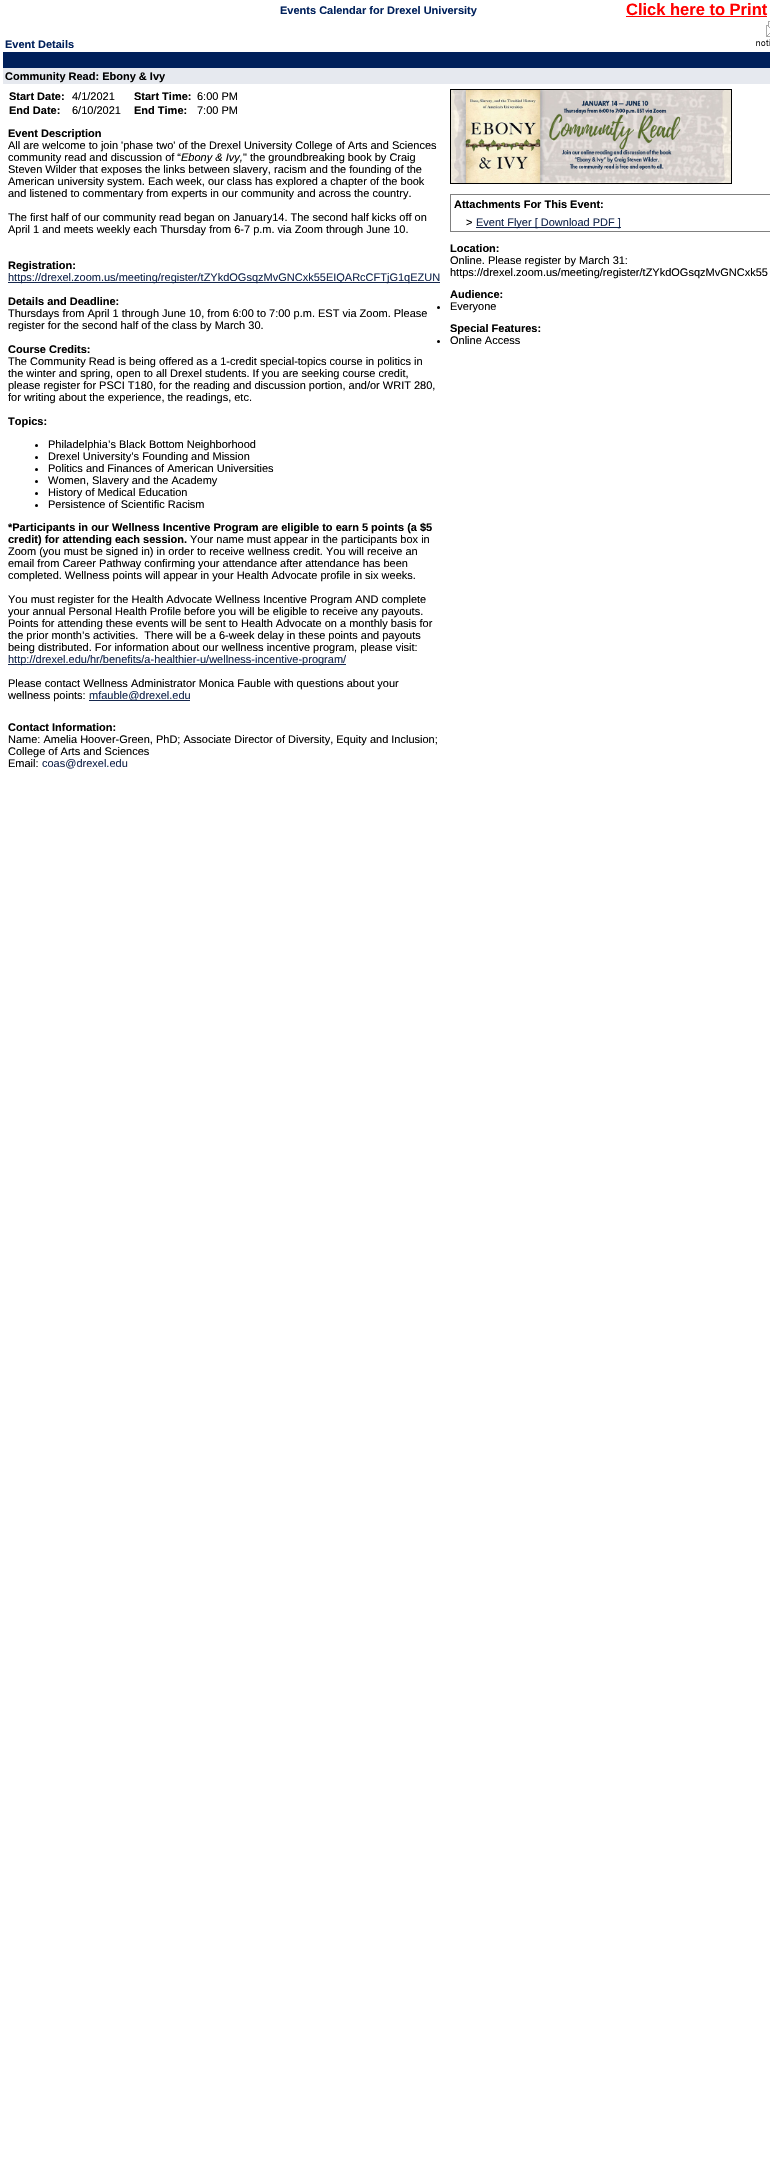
void draw(SkCanvas* canvas) {
	SkPaint fill;
	fill.setAntiAlias(true);
	auto makeFont = [&](const char* family, int weight, float size, bool italic = false) {
		SkFontStyle style(weight, SkFontStyle::kNormal_Width,
			italic ? SkFontStyle::kItalic_Slant : SkFontStyle::kUpright_Slant);
		SkFont result(fontMgr->matchFamilyStyle(family, style), size);
		result.setSubpixel(true);
		return result;
	};
	auto text = [&](const char* s, float x, float y, const SkFont& font) {
		canvas->drawString(s, x, y, font, fill);
	};
	auto box = [&](float l, float t, float r, float b) {
		canvas->drawRect(SkRect::MakeLTRB(l, t, r, b), fill);
	};
	auto picture = [&](const char* path, float l, float t, float r, float b) {
		auto image = SkImages::DeferredFromEncodedData(SkData::MakeFromFileName(path));
		canvas->drawImageRect(image, SkRect::MakeLTRB(l, t, r, b), SkSamplingOptions());
	};
	canvas->clear(0xFFFFFFFF);
	fill.setColor(0xFFFF0000);
	box(626, 16, 767, 17);
	picture("image0.png", 756, 21, 770, 46);
	fill.setColor(0xFF00205B);
	box(3, 52, 770, 68);
	fill.setColor(0xFFE6E9EF);
	box(3, 68, 770, 84);
	fill.setColor(0xFF15274D);
	box(8, 282, 440, 283);
	fill.setColor(0xFF000000);
	canvas->drawCircle(36.5f, 445.5f, 1.5f, fill);
	canvas->drawCircle(36.5f, 457.5f, 1.5f, fill);
	canvas->drawCircle(36.5f, 469.5f, 1.5f, fill);
	canvas->drawCircle(36.5f, 481.5f, 1.5f, fill);
	canvas->drawCircle(36.5f, 493.5f, 1.5f, fill);
	canvas->drawCircle(36.5f, 505.5f, 1.5f, fill);
	fill.setColor(0xFF15274D);
	box(8, 664, 346, 665);
	box(89, 700, 190, 701);
	fill.setStyle(SkPaint::kStroke_Style);
	fill.setStrokeWidth(1);
	fill.setColor(0xFF000000);
	canvas->drawRect(SkRect::MakeLTRB(450.5f, 89.5f, 731.5f, 183.5f), fill);
	picture("image1.png", 451, 90, 731, 183);
	fill.setStyle(SkPaint::kFill_Style);
	fill.setColor(0xFF808080);
	box(450, 194, 770, 195);
	box(450, 231, 770, 232);
	box(450, 194, 451, 232);
	fill.setColor(0xFF15274D);
	box(476, 227, 621, 228);
	fill.setColor(0xFF000000);
	canvas->drawCircle(438.5f, 307.5f, 1.5f, fill);
	canvas->drawCircle(438.5f, 341.5f, 1.5f, fill);
	auto font1 = makeFont("Liberation Sans", 700, 11);
	fill.setColor(0xFF00205B);
	text("Events Calendar for Drexel University", 280, 14, font1);
	auto font2 = makeFont("Liberation Sans", 700, 16.5f);
	fill.setColor(0xFFFF0000);
	text("Click here to Print", 626, 15, font2);
	fill.setColor(0xFF00205B);
	text("Event Details", 5, 48, font1);
	fill.setColor(0xFF000000);
	text("Community Read: Ebony & Ivy", 5, 80, font1);
	text("Start Date:", 9, 100, font1);
	auto font3 = makeFont("Liberation Sans", 400, 11);
	text("4/1/2021", 72, 100, font3);
	text("Start Time:", 134, 100, font1);
	text("6:00 PM", 197, 100, font3);
	text("End Date:", 9, 114, font1);
	text("6/10/2021", 72, 114, font3);
	text("End Time:", 134, 114, font1);
	text("7:00 PM", 197, 114, font3);
	text("Event Description", 8, 137, font1);
	text("All are welcome to join 'phase two' of the Drexel University College of Arts and Sciences", 8, 149, font3);
	text("community read and discussion of “", 8, 161, font3);
	auto font4 = makeFont("Liberation Sans", 400, 11, true);
	text("Ebony & Ivy,", 181, 161, font4);
	text("\" the groundbreaking book by Craig", 243, 161, font3);
	text("Steven Wilder that exposes the links between slavery, racism and the founding of the", 8, 173, font3);
	text("American university system. Each week, our class has explored a chapter of the book", 8, 185, font3);
	text("and listened to commentary from experts in our community and across the country.", 8, 197, font3);
	text("The first half of our community read began on January14. The second half kicks off on", 8, 221, font3);
	text("April 1 and meets weekly each Thursday from 6-7 p.m. via Zoom through June 10.", 8, 233, font3);
	text("Registration:", 8, 269, font1);
	fill.setColor(0xFF15274D);
	text("https://drexel.zoom.us/meeting/register/tZYkdOGsqzMvGNCxk55EIQARcCFTjG1qEZUN", 8, 281, font3);
	fill.setColor(0xFF000000);
	text("Details and Deadline:", 8, 305, font1);
	text("Thursdays from April 1 through June 10, from 6:00 to 7:00 p.m. EST via Zoom. Please", 8, 317, font3);
	text("register for the second half of the class by March 30.", 8, 329, font3);
	text("Course Credits:", 8, 353, font1);
	text("The Community Read is being offered as a 1-credit special-topics course in politics in", 8, 365, font3);
	text("the winter and spring, open to all Drexel students. If you are seeking course credit,", 8, 377, font3);
	text("please register for PSCI T180, for the reading and discussion portion, and/or WRIT 280,", 8, 389, font3);
	text("for writing about the experience, the readings, etc.", 8, 401, font3);
	text("Topics:", 8, 425, font1);
	text("Philadelphia’s Black Bottom Neighborhood", 48, 448, font3);
	text("Drexel University’s Founding and Mission", 48, 460, font3);
	text("Politics and Finances of American Universities", 48, 472, font3);
	text("Women, Slavery and the Academy", 48, 484, font3);
	text("History of Medical Education", 48, 496, font3);
	text("Persistence of Scientific Racism", 48, 508, font3);
	text("*Participants in our Wellness Incentive Program are eligible to earn 5 points (a $5", 8, 531, font1);
	text("credit) for attending each session.", 8, 543, font1);
	text("Your name must appear in the participants box in", 190, 543, font3);
	text("Zoom (you must be signed in) in order to receive wellness credit. You will receive an", 8, 555, font3);
	text("email from Career Pathway confirming your attendance after attendance has been", 8, 567, font3);
	text("completed. Wellness points will appear in your Health Advocate profile in six weeks.", 8, 579, font3);
	text("You must register for the Health Advocate Wellness Incentive Program AND complete", 8, 603, font3);
	text("your annual Personal Health Profile before you will be eligible to receive any payouts.", 8, 615, font3);
	text("Points for attending these events will be sent to Health Advocate on a monthly basis for", 8, 627, font3);
	text("the prior month’s activities.  There will be a 6-week delay in these points and payouts", 8, 639, font3);
	text("being distributed. For information about our wellness incentive program, please visit:", 8, 651, font3);
	fill.setColor(0xFF15274D);
	text("http://drexel.edu/hr/benefits/a-healthier-u/wellness-incentive-program/", 8, 663, font3);
	fill.setColor(0xFF000000);
	text("Please contact Wellness Administrator Monica Fauble with questions about your", 8, 687, font3);
	text("wellness points:", 8, 699, font3);
	fill.setColor(0xFF15274D);
	text("mfauble@drexel.edu", 89, 699, font3);
	fill.setColor(0xFF000000);
	text("Contact Information:", 8, 731, font1);
	text("Name: Amelia Hoover-Green, PhD; Associate Director of Diversity, Equity and Inclusion;", 8, 743, font3);
	text("College of Arts and Sciences", 8, 755, font3);
	text("Email:", 8, 767, font3);
	fill.setColor(0xFF15274D);
	text("coas@drexel.edu", 42, 767, font3);
	fill.setColor(0xFF000000);
	text("Attachments For This Event:", 454, 208, font1);
	text(">", 466, 226, font3);
	fill.setColor(0xFF15274D);
	text("Event Flyer [ Download PDF ]", 476, 226, font3);
	fill.setColor(0xFF000000);
	text("Location:", 450, 252, font1);
	text("Online. Please register by March 31:", 450, 264, font3);
	text("https://drexel.zoom.us/meeting/register/tZYkdOGsqzMvGNCxk55", 450, 276, font3);
	text("Audience:", 450, 298, font1);
	text("Everyone", 450, 310, font3);
	text("Special Features:", 450, 332, font1);
	text("Online Access", 450, 344, font3);
}
